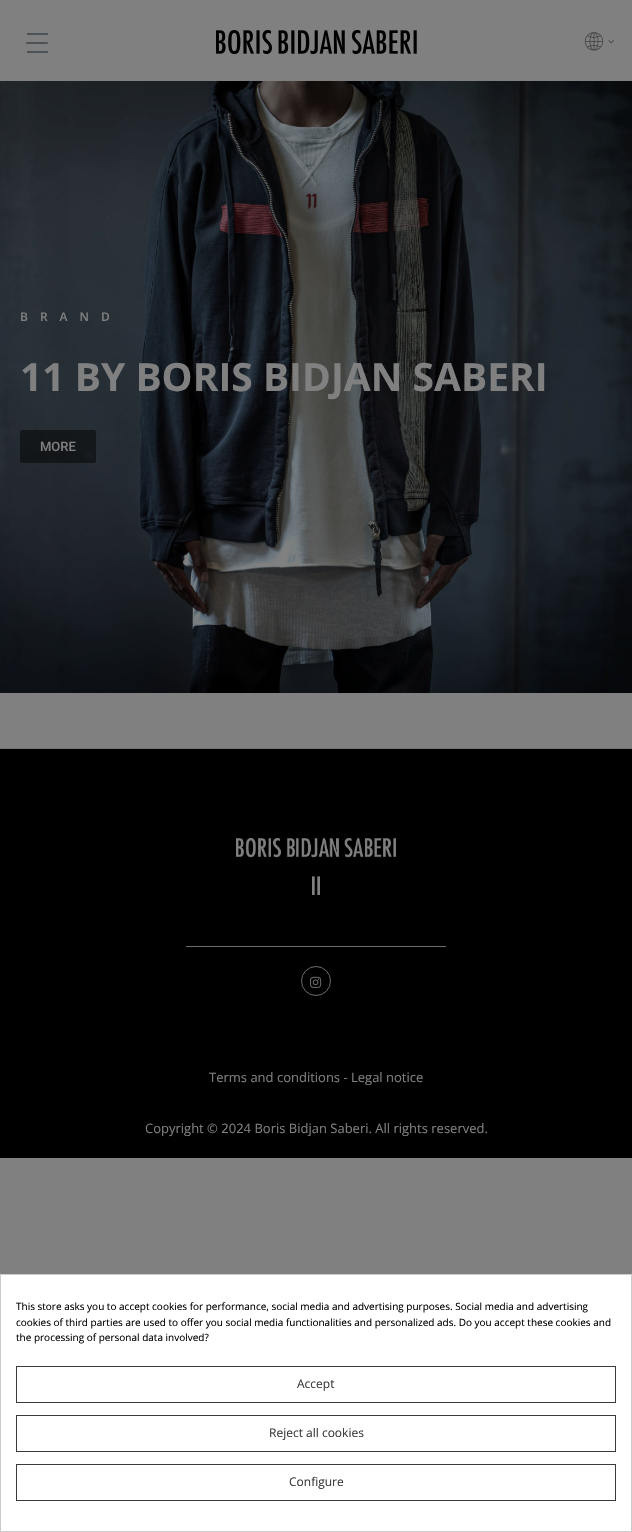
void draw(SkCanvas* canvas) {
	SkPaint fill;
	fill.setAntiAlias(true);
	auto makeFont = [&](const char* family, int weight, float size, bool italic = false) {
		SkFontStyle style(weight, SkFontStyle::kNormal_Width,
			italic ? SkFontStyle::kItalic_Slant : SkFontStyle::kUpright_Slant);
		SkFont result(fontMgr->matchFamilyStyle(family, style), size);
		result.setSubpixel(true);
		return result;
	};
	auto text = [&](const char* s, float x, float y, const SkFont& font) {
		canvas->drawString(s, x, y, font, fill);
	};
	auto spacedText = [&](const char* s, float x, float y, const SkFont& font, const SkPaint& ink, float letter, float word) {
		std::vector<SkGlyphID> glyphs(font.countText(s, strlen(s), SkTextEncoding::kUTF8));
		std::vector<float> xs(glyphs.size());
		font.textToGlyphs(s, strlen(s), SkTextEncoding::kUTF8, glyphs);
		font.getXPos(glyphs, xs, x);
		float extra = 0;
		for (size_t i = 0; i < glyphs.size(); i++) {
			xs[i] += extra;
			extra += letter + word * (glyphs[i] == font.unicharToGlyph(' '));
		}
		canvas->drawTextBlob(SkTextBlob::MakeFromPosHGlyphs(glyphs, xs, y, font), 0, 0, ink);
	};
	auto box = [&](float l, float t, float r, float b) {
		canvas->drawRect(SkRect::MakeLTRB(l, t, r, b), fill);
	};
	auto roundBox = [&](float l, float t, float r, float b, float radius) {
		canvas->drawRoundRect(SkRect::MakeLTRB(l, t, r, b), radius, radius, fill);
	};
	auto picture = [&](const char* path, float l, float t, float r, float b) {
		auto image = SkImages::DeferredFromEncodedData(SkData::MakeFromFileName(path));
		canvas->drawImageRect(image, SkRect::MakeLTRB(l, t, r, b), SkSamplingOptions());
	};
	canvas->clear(0xFF808080);
	picture("image0.png", 216, 30, 417, 54);
	fill.setColor(0xFF4D5257);
	box(27, 33, 48, 35);
	box(27, 51, 48, 53);
	roundBox(26, 42, 48, 44, 1);
	picture("image1.png", 584, 32, 604, 51);
	picture("image2.png", 608, 40, 614, 44);
	picture("image3.png", 0, 81, 632, 693);
	fill.setColor(0x7D000000);
	roundBox(20, 430, 96, 463, 2);
	fill.setColor(0xFF000000);
	box(0, 749, 632, 1158);
	fill.setColor(0xFF757575);
	box(0, 748, 632, 749);
	picture("image4.png", 236, 838, 396, 895);
	fill.setColor(0xFF6D6D6D);
	box(186, 946, 446, 947);
	fill.setStyle(SkPaint::kStroke_Style);
	fill.setStrokeWidth(1);
	canvas->drawCircle(316, 981, 14.5f, fill);
	picture("image5.png", 310, 976, 322, 988);
	fill.setStyle(SkPaint::kFill_Style);
	fill.setColor(0xFFFFFFFF);
	canvas->drawRect(SkRect::MakeLTRB(0.5f, 1274.5f, 631.5f, 1531.5f), fill);
	fill.setStyle(SkPaint::kStroke_Style);
	fill.setColor(0xFFCCCCCC);
	canvas->drawRect(SkRect::MakeLTRB(0.5f, 1274.5f, 631.5f, 1531.5f), fill);
	fill.setColor(0xFF3B3B3B);
	canvas->drawRect(SkRect::MakeLTRB(16.5f, 1366.5f, 615.5f, 1402.5f), fill);
	canvas->drawRect(SkRect::MakeLTRB(16.5f, 1415.5f, 615.5f, 1451.5f), fill);
	canvas->drawRect(SkRect::MakeLTRB(16.5f, 1464.5f, 615.5f, 1500.5f), fill);
	auto font1 = makeFont("Open Sans", 600, 12);
	fill.setStyle(SkPaint::kFill_Style);
	fill.setColor(0xFF808080);
	spacedText("BRAND", 20, 321, font1, fill, 12, 0);
	auto font2 = makeFont("Open Sans", 700, 39);
	text("11 BY BORIS BIDJAN SABERI", 20, 391, font2);
	auto font3 = makeFont("Roboto", 500, 13);
	text("MORE", 40, 451, font3);
	auto font4 = makeFont("Open Sans", 400, 13);
	text("Terms and conditions - Legal notice", 209, 1082, font4);
	text("Copyright © 2024 Boris Bidjan Saberi. All rights reserved.", 145, 1133, font4);
	auto font5 = makeFont("Open Sans", 400, 10);
	fill.setColor(0xFF000000);
	text("This store asks you to accept cookies for performance, social media and advertising purposes. Social media and advertising", 16, 1310, font5);
	text("cookies of third parties are used to offer you social media functionalities and personalized ads. Do you accept these cookies and", 16, 1326, font5);
	text("the processing of personal data involved?", 16, 1341, font5);
	auto font6 = makeFont("Open Sans", 400, 12);
	fill.setColor(0xFF3B3B3B);
	text("Accept", 297, 1388, font6);
	text("Reject all cookies", 269, 1437, font6);
	text("Configure", 289, 1486, font6);
}
